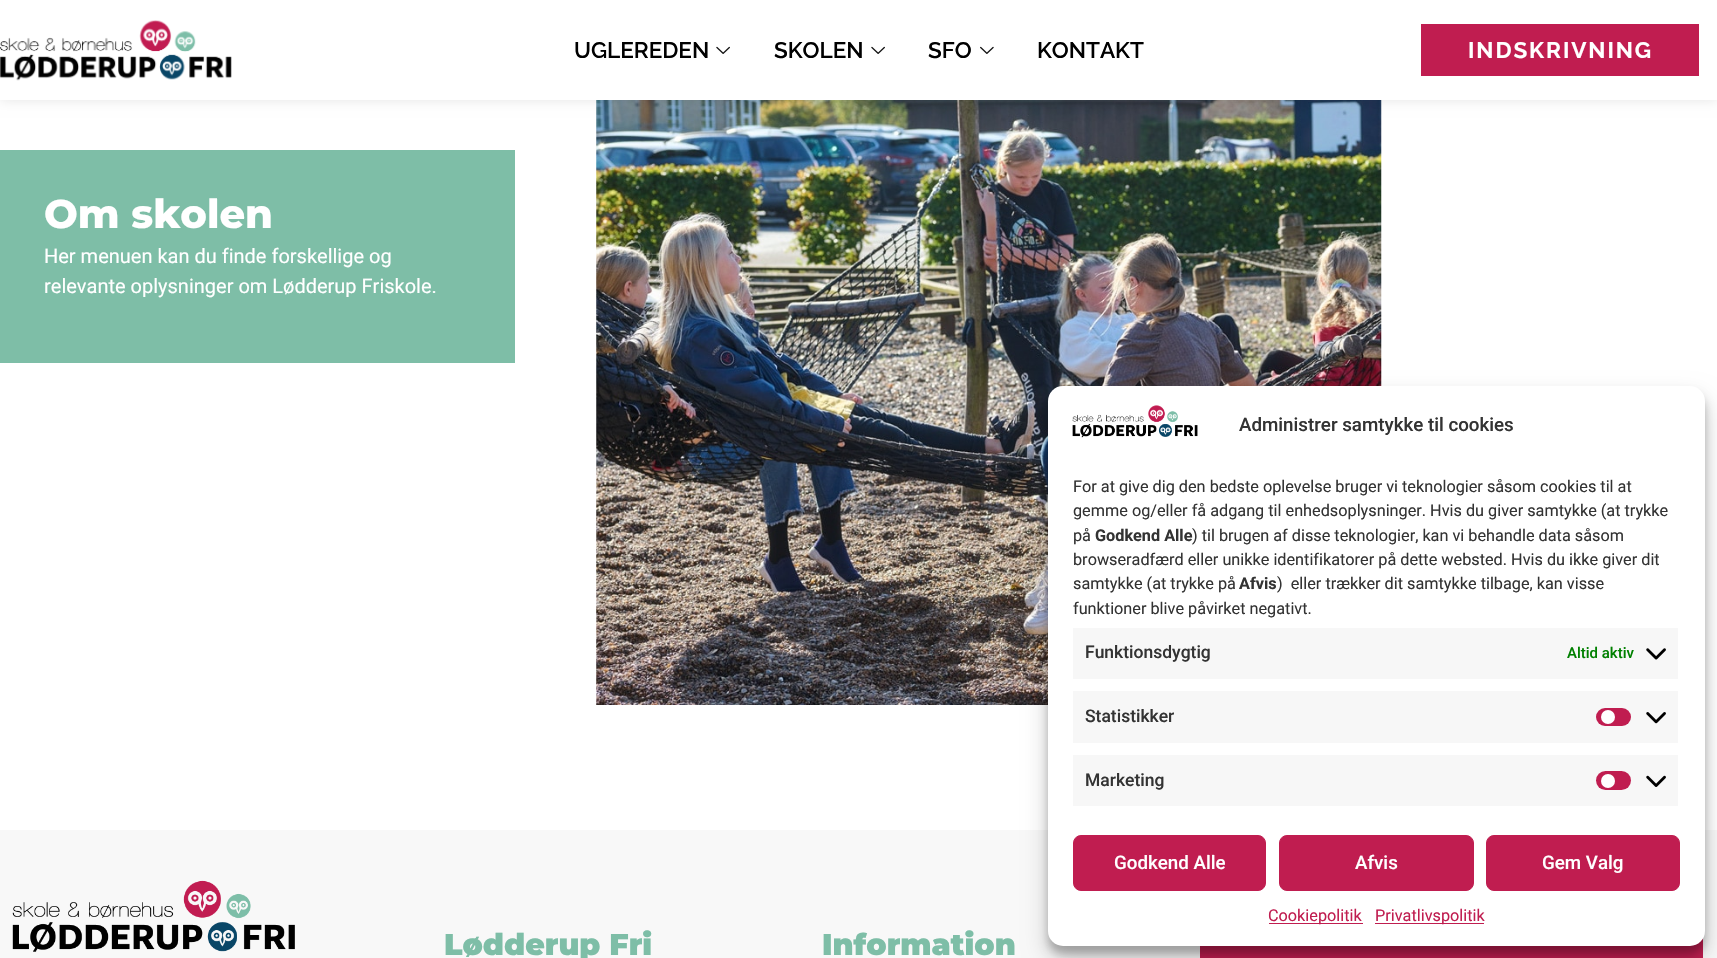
void draw(SkCanvas* canvas) {
	SkPaint fill;
	fill.setAntiAlias(true);
	auto makeFont = [&](const char* family, int weight, float size, bool italic = false) {
		SkFontStyle style(weight, SkFontStyle::kNormal_Width,
			italic ? SkFontStyle::kItalic_Slant : SkFontStyle::kUpright_Slant);
		SkFont result(fontMgr->matchFamilyStyle(family, style), size);
		result.setSubpixel(true);
		return result;
	};
	auto text = [&](const char* s, float x, float y, const SkFont& font) {
		canvas->drawString(s, x, y, font, fill);
	};
	auto spacedText = [&](const char* s, float x, float y, const SkFont& font, const SkPaint& ink, float letter, float word) {
		std::vector<SkGlyphID> glyphs(font.countText(s, strlen(s), SkTextEncoding::kUTF8));
		std::vector<float> xs(glyphs.size());
		font.textToGlyphs(s, strlen(s), SkTextEncoding::kUTF8, glyphs);
		font.getXPos(glyphs, xs, x);
		float extra = 0;
		for (size_t i = 0; i < glyphs.size(); i++) {
			xs[i] += extra;
			extra += letter + word * (glyphs[i] == font.unicharToGlyph(' '));
		}
		canvas->drawTextBlob(SkTextBlob::MakeFromPosHGlyphs(glyphs, xs, y, font), 0, 0, ink);
	};
	auto box = [&](float l, float t, float r, float b) {
		canvas->drawRect(SkRect::MakeLTRB(l, t, r, b), fill);
	};
	auto roundBox = [&](float l, float t, float r, float b, float radius) {
		canvas->drawRoundRect(SkRect::MakeLTRB(l, t, r, b), radius, radius, fill);
	};
	auto picture = [&](const char* path, float l, float t, float r, float b) {
		auto image = SkImages::DeferredFromEncodedData(SkData::MakeFromFileName(path));
		canvas->drawImageRect(image, SkRect::MakeLTRB(l, t, r, b), SkSamplingOptions());
	};
	canvas->clear(0xFFFFFFFF);
	picture("image3.png", 596, 100, 1382, 705);
	fill.setColor(0x1A000000);
	fill.setMaskFilter(SkMaskFilter::MakeBlur(kNormal_SkBlurStyle, 6));
	canvas->drawRect(SkRect::MakeLTRB(0, 0, 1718, 100), fill);
	fill.setMaskFilter(nullptr);
	fill.setColor(0xFFFFFFFF);
	box(0, 0, 1717, 100);
	picture("image0.png", 0, 20, 232, 81);
	picture("image1.png", 716, 46, 730, 54);
	picture("image1.png", 871, 46, 885, 54);
	picture("image2.png", 980, 46, 994, 54);
	fill.setColor(0xFFC01D50);
	box(1421, 24, 1699, 76);
	fill.setColor(0xFF7EBEA7);
	box(0, 150, 515, 363);
	fill.setColor(0xFFF8F8F8);
	box(0, 830, 1717, 958);
	fill.setColor(0xFFC01D50);
	box(1200, 938, 1703, 958);
	fill.setColor(0x3B000000);
	fill.setMaskFilter(SkMaskFilter::MakeBlur(kNormal_SkBlurStyle, 4));
	canvas->drawRoundRect(SkRect::MakeLTRB(1048, 394, 1705, 954), 15, 15, fill);
	fill.setMaskFilter(nullptr);
	fill.setColor(0x30000000);
	fill.setMaskFilter(SkMaskFilter::MakeBlur(kNormal_SkBlurStyle, 12.5f));
	canvas->drawRoundRect(SkRect::MakeLTRB(1048, 399, 1705, 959), 15, 15, fill);
	fill.setMaskFilter(nullptr);
	fill.setColor(0xFFFFFFFF);
	roundBox(1048, 386, 1705, 946, 15);
	picture("image4.png", 1072, 405, 1198, 438);
	fill.setColor(0xFFF7F7F7);
	box(1073, 628, 1678, 679);
	picture("image5.png", 1646, 648, 1666, 660);
	box(1073, 691, 1678, 743);
	fill.setColor(0xFFC01D50);
	roundBox(1596, 708, 1631, 726, 9);
	fill.setColor(0xFFFFFFFF);
	canvas->drawCircle(1608, 717, 7, fill);
	picture("image6.png", 1646, 712, 1666, 724);
	fill.setColor(0xFFF7F7F7);
	box(1073, 755, 1678, 806);
	fill.setColor(0xFFC01D50);
	roundBox(1596, 771, 1631, 790, 9.5f);
	fill.setColor(0xFFFFFFFF);
	canvas->drawCircle(1608, 781, 7, fill);
	picture("image7.png", 1646, 775, 1666, 787);
	fill.setColor(0xFFC01D50);
	canvas->drawRoundRect(SkRect::MakeLTRB(1073.5f, 835.5f, 1265.5f, 890.5f), 7.5f, 7.5f, fill);
	fill.setStyle(SkPaint::kStroke_Style);
	fill.setStrokeWidth(1);
	canvas->drawRoundRect(SkRect::MakeLTRB(1073.5f, 835.5f, 1265.5f, 890.5f), 7.5f, 7.5f, fill);
	fill.setStyle(SkPaint::kFill_Style);
	canvas->drawRoundRect(SkRect::MakeLTRB(1279.5f, 835.5f, 1473.5f, 890.5f), 7.5f, 7.5f, fill);
	fill.setStyle(SkPaint::kStroke_Style);
	canvas->drawRoundRect(SkRect::MakeLTRB(1279.5f, 835.5f, 1473.5f, 890.5f), 7.5f, 7.5f, fill);
	fill.setStyle(SkPaint::kFill_Style);
	canvas->drawRoundRect(SkRect::MakeLTRB(1486.5f, 835.5f, 1679.5f, 890.5f), 7.5f, 7.5f, fill);
	fill.setStyle(SkPaint::kStroke_Style);
	canvas->drawRoundRect(SkRect::MakeLTRB(1486.5f, 835.5f, 1679.5f, 890.5f), 7.5f, 7.5f, fill);
	fill.setStyle(SkPaint::kFill_Style);
	box(1269, 923, 1363, 924);
	box(1375, 923, 1484, 924);
	picture("image8.png", 12, 880, 295, 952);
	auto font1 = makeFont("Raleway", 600, 22.5f);
	fill.setColor(0xFF000000);
	text("UGLEREDEN", 574, 58, font1);
	text("SKOLEN", 774, 58, font1);
	text("SFO", 928, 58, font1);
	text("KONTAKT", 1037, 58, font1);
	auto font2 = makeFont("Raleway", 700, 22.5f);
	fill.setColor(0xFFFFFFFF);
	spacedText("INDSKRIVNING", 1468, 58, font2, fill, 1.9f, 0);
	auto font3 = makeFont("Montserrat", 800, 40);
	text("Om skolen", 44, 228, font3);
	auto font4 = makeFont("Roboto", 400, 20);
	text("Her menuen kan du finde forskellige og", 44, 263, font4);
	text("relevante oplysninger om Lødderup Friskole.", 44, 293, font4);
	auto font5 = makeFont("Roboto", 500, 18.75f);
	fill.setColor(0xFF333333);
	text("Administrer samtykke til cookies", 1239, 431, font5);
	auto font6 = makeFont("Roboto", 400, 16.25f);
	text("For at give dig den bedste oplevelse bruger vi teknologier såsom cookies til at", 1073, 492, font6);
	text("gemme og/eller få adgang til enhedsoplysninger. Hvis du giver samtykke (at trykke", 1073, 516, font6);
	text("på", 1073, 541, font6);
	auto font7 = makeFont("Roboto", 700, 16.25f);
	text("Godkend Alle", 1095, 541, font7);
	text(") til brugen af disse teknologier, kan vi behandle data såsom", 1192, 541, font6);
	text("browseradfærd eller unikke identifikatorer på dette websted. Hvis du ikke giver dit", 1073, 565, font6);
	text("samtykke (at trykke på", 1073, 589, font6);
	text("Afvis", 1239, 589, font7);
	text(")  eller trækker dit samtykke tilbage, kan visse", 1277, 589, font6);
	text("funktioner blive påvirket negativt.", 1073, 614, font6);
	auto font8 = makeFont("Roboto", 500, 17.5f);
	text("Funktionsdygtig", 1085, 658, font8);
	auto font9 = makeFont("Roboto", 500, 15);
	fill.setColor(0xFF008000);
	text("Altid aktiv", 1567, 658, font9);
	fill.setColor(0xFF333333);
	text("Statistikker", 1085, 722, font8);
	text("Marketing", 1085, 786, font8);
	fill.setColor(0xFFFFFFFF);
	text("Godkend Alle", 1114, 869, font5);
	text("Afvis", 1355, 869, font5);
	text("Gem Valg", 1542, 869, font5);
	fill.setColor(0xFFC01D50);
	text("Cookiepolitik", 1268, 921, font6);
	text("Privatlivspolitik", 1375, 921, font6);
	auto font10 = makeFont("Montserrat", 900, 30);
	fill.setColor(0xFF7EBEA7);
	text("Lødderup Fri", 444, 955, font10);
	text("Information", 822, 955, font10);
}
